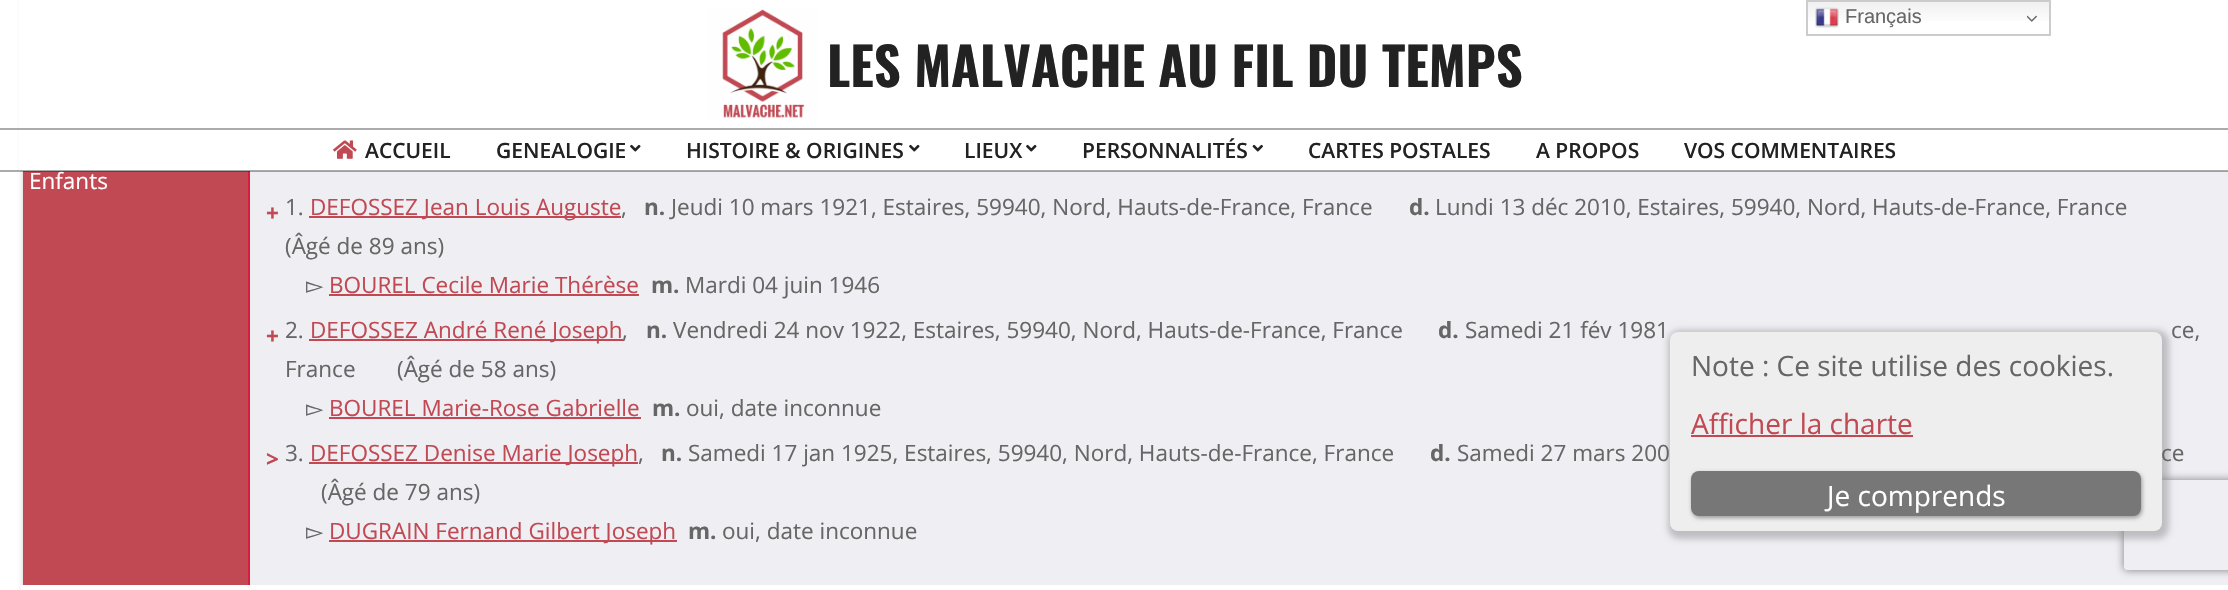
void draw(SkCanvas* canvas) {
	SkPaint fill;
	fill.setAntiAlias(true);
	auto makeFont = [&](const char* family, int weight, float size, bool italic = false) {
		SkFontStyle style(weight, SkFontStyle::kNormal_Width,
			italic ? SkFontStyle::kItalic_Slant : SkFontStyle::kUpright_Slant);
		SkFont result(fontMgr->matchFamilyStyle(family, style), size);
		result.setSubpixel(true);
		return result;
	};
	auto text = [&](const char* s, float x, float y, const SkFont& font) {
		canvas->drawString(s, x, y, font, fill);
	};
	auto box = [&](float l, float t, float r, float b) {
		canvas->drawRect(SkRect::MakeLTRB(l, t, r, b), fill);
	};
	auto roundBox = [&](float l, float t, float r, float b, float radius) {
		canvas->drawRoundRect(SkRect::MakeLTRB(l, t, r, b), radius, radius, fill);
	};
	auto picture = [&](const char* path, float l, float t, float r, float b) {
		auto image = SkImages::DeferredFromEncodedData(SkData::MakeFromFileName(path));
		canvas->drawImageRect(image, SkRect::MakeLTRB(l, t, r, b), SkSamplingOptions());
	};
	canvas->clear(0xFFFFFFFF);
	fill.setColor(0xFF666666);
	fill.setMaskFilter(SkMaskFilter::MakeBlur(kNormal_SkBlurStyle, 4));
	canvas->drawRoundRect(SkRect::MakeLTRB(27, -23, 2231, 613), 11, 11, fill);
	fill.setMaskFilter(nullptr);
	fill.setColor(0xFFFFFFFF);
	box(19, 0, 2228, 171);
	{
		const SkColor colors[] = {0xFFEFEFEF, 0xFFFFFFFF};
		const float stops[] = {0, 0.7f};
		const SkPoint ends[] = {{1928, 0}, {1928, 36}};
		fill.setShader(SkGradientShader::MakeLinear(ends, colors, stops, 2, SkTileMode::kClamp));
		fill.setAlpha(255);
	}
	box(1808, 2, 2049, 21);
	fill.setStyle(SkPaint::kStroke_Style);
	fill.setStrokeWidth(2);
	fill.setShader(nullptr);
	fill.setColor(0xFFCCCCCC);
	canvas->drawRect(SkRect::MakeLTRB(1807, 1, 2050, 35), fill);
	picture("image0.png", 1815, 7, 1839, 28);
	picture("image1.png", 2027, 15, 2037, 22);
	fill.setStyle(SkPaint::kFill_Style);
	fill.setColor(0xFFABABAB);
	box(0, 128, 2228, 130);
	picture("image2.png", 707, 8, 819, 120);
	picture("image3.png", 333, 140, 357, 159);
	picture("image4.png", 630, 144, 641, 152);
	picture("image4.png", 909, 144, 920, 152);
	picture("image4.png", 1026, 144, 1037, 152);
	picture("image5.png", 1252, 144, 1263, 152);
	fill.setColor(0xFFC14953);
	box(23, 171, 248, 585);
	fill.setColor(0xFFD91B3E);
	box(248, 171, 250, 588);
	fill.setColor(0xFFEEEEF3);
	box(250, 171, 2228, 585);
	fill.setColor(0xFFFFFFFF);
	box(21, 585, 2228, 590);
	fill.setColor(0xFFC14953);
	box(309, 216, 621, 218);
	box(329, 294, 639, 296);
	box(309, 339, 623, 341);
	box(329, 417, 641, 419);
	box(309, 462, 638, 464);
	box(329, 540, 677, 542);
	fill.setColor(0x33000000);
	fill.setMaskFilter(SkMaskFilter::MakeBlur(kNormal_SkBlurStyle, 3));
	canvas->drawRoundRect(SkRect::MakeLTRB(1668, 330, 2169, 539), 12, 12, fill);
	fill.setMaskFilter(nullptr);
	canvas->save();
	canvas->clipPath(SkPathBuilder(SkPathFillType::kEvenOdd).moveTo(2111, 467).lineTo(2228, 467).lineTo(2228, 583).lineTo(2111, 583).close().moveTo(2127, 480).lineTo(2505, 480).cubicTo(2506.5f, 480, 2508, 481.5f, 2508, 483).lineTo(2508, 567).cubicTo(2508, 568.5f, 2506.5f, 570, 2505, 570).lineTo(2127, 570).cubicTo(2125.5f, 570, 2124, 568.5f, 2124, 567).lineTo(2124, 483).cubicTo(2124, 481.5f, 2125.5f, 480, 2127, 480).close().detach(), true);
	fill.setColor(0xFF808080);
	fill.setMaskFilter(SkMaskFilter::MakeBlur(kNormal_SkBlurStyle, 4));
	canvas->drawRoundRect(SkRect::MakeLTRB(2124, 480, 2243, 570), 3, 3, fill);
	fill.setMaskFilter(nullptr);
	canvas->restore();
	auto font1 = makeFont("Liberation Sans", 400, 20);
	fill.setColor(0xFF666666);
	text("Français", 1845, 23, font1);
	auto font2 = makeFont("Oswald", 700, 52.5f);
	fill.setColor(0xFF222222);
	text("LES MALVACHE AU FIL DU TEMPS", 827, 87, font2);
	auto font3 = makeFont("Open Sans", 600, 21);
	text("ACCUEIL", 365, 158, font3);
	text("GENEALOGIE", 496, 158, font3);
	text("HISTOIRE & ORIGINES", 686, 158, font3);
	text("LIEUX", 964, 158, font3);
	text("PERSONNALITÉS", 1082, 158, font3);
	text("CARTES POSTALES", 1308, 158, font3);
	text("A PROPOS", 1536, 158, font3);
	text("VOS COMMENTAIRES", 1684, 158, font3);
	auto font4 = makeFont("Open Sans", 400, 22.5f);
	fill.setColor(0xFFFFFFFF);
	text("Enfants", 29, 189, font4);
	fill.setColor(0x54000000);
	box(0, 170, 2228, 172);
	auto font5 = makeFont("Open Sans", 700, 22.5f);
	fill.setColor(0xFFC14953);
	text("+", 266, 221, font5);
	fill.setColor(0xFF666666);
	text("1.", 285, 215, font4);
	fill.setColor(0xFFC14953);
	text("DEFOSSEZ Jean Louis Auguste", 310, 215, font4);
	fill.setColor(0xFF666666);
	text(",", 621, 215, font4);
	text("n.", 644, 215, font5);
	text("Jeudi 10 mars 1921, Estaires, 59940, Nord, Hauts-de-France, France", 671, 215, font4);
	text("d.", 1409, 215, font5);
	text("Lundi 13 déc 2010, Estaires, 59940, Nord, Hauts-de-France, France", 1435, 215, font4);
	text("(Âgé de 89 ans)", 285, 254, font4);
	auto font6 = makeFont("DejaVu Sans", 400, 22.5f);
	text("▻", 306, 293, font6);
	fill.setColor(0xFFC14953);
	text("BOUREL Cecile Marie Thérèse", 329, 293, font4);
	fill.setColor(0xFF666666);
	text("m.", 651, 293, font5);
	text("Mardi 04 juin 1946", 685, 293, font4);
	fill.setColor(0xFFC14953);
	text("+", 266, 344, font5);
	fill.setColor(0xFF666666);
	text("2.", 285, 338, font4);
	fill.setColor(0xFFC14953);
	text("DEFOSSEZ André René Joseph", 310, 338, font4);
	fill.setColor(0xFF666666);
	text(",", 622, 338, font4);
	text("n.", 646, 338, font5);
	text("Vendredi 24 nov 1922, Estaires, 59940, Nord, Hauts-de-France, France", 673, 338, font4);
	text("d.", 1438, 338, font5);
	text("Samedi 21 fév 1981", 1465, 338, font4);
	text("ce,", 2171, 338, font4);
	text("France", 285, 377, font4);
	text("(Âgé de 58 ans)", 397, 377, font4);
	text("▻", 306, 416, font6);
	fill.setColor(0xFFC14953);
	text("BOUREL Marie-Rose Gabrielle", 329, 416, font4);
	fill.setColor(0xFF666666);
	text("m.", 652, 416, font5);
	text("oui, date inconnue", 686, 416, font4);
	fill.setColor(0xFFC14953);
	text(">", 266, 467, font5);
	fill.setColor(0xFF666666);
	text("3.", 285, 461, font4);
	fill.setColor(0xFFC14953);
	text("DEFOSSEZ Denise Marie Joseph", 310, 461, font4);
	fill.setColor(0xFF666666);
	text(",", 638, 461, font4);
	text("n.", 661, 461, font5);
	text("Samedi 17 jan 1925, Estaires, 59940, Nord, Hauts-de-France, France", 688, 461, font4);
	text("d.", 1430, 461, font5);
	text("Samedi 27 mars 200", 1457, 461, font4);
	text("ce", 2161, 461, font4);
	text("(Âgé de 79 ans)", 321, 500, font4);
	text("▻", 306, 539, font6);
	fill.setColor(0xFFC14953);
	text("DUGRAIN Fernand Gilbert Joseph", 329, 539, font4);
	fill.setColor(0xFF666666);
	text("m.", 688, 539, font5);
	text("oui, date inconnue", 722, 539, font4);
	fill.setColor(0xFFEEEEEE);
	roundBox(1670, 332, 2162, 531, 8);
	auto font7 = makeFont("Open Sans", 400, 28);
	fill.setColor(0xFF666666);
	text("Note : Ce site utilise des cookies.", 1691, 376, font7);
	fill.setColor(0xFFC14953);
	text("Afficher la charte", 1691, 434, font7);
	box(1691, 435, 1913, 437);
	fill.setColor(0xFF999999);
	fill.setMaskFilter(SkMaskFilter::MakeBlur(kNormal_SkBlurStyle, 2));
	canvas->drawRoundRect(SkRect::MakeLTRB(1692, 473, 2142, 518), 8, 8, fill);
	fill.setMaskFilter(nullptr);
	fill.setColor(0xFF777777);
	roundBox(1691, 471, 2141, 516, 8);
	fill.setColor(0xFFFFFFFF);
	text("Je comprends", 1827, 506, font7);
}
